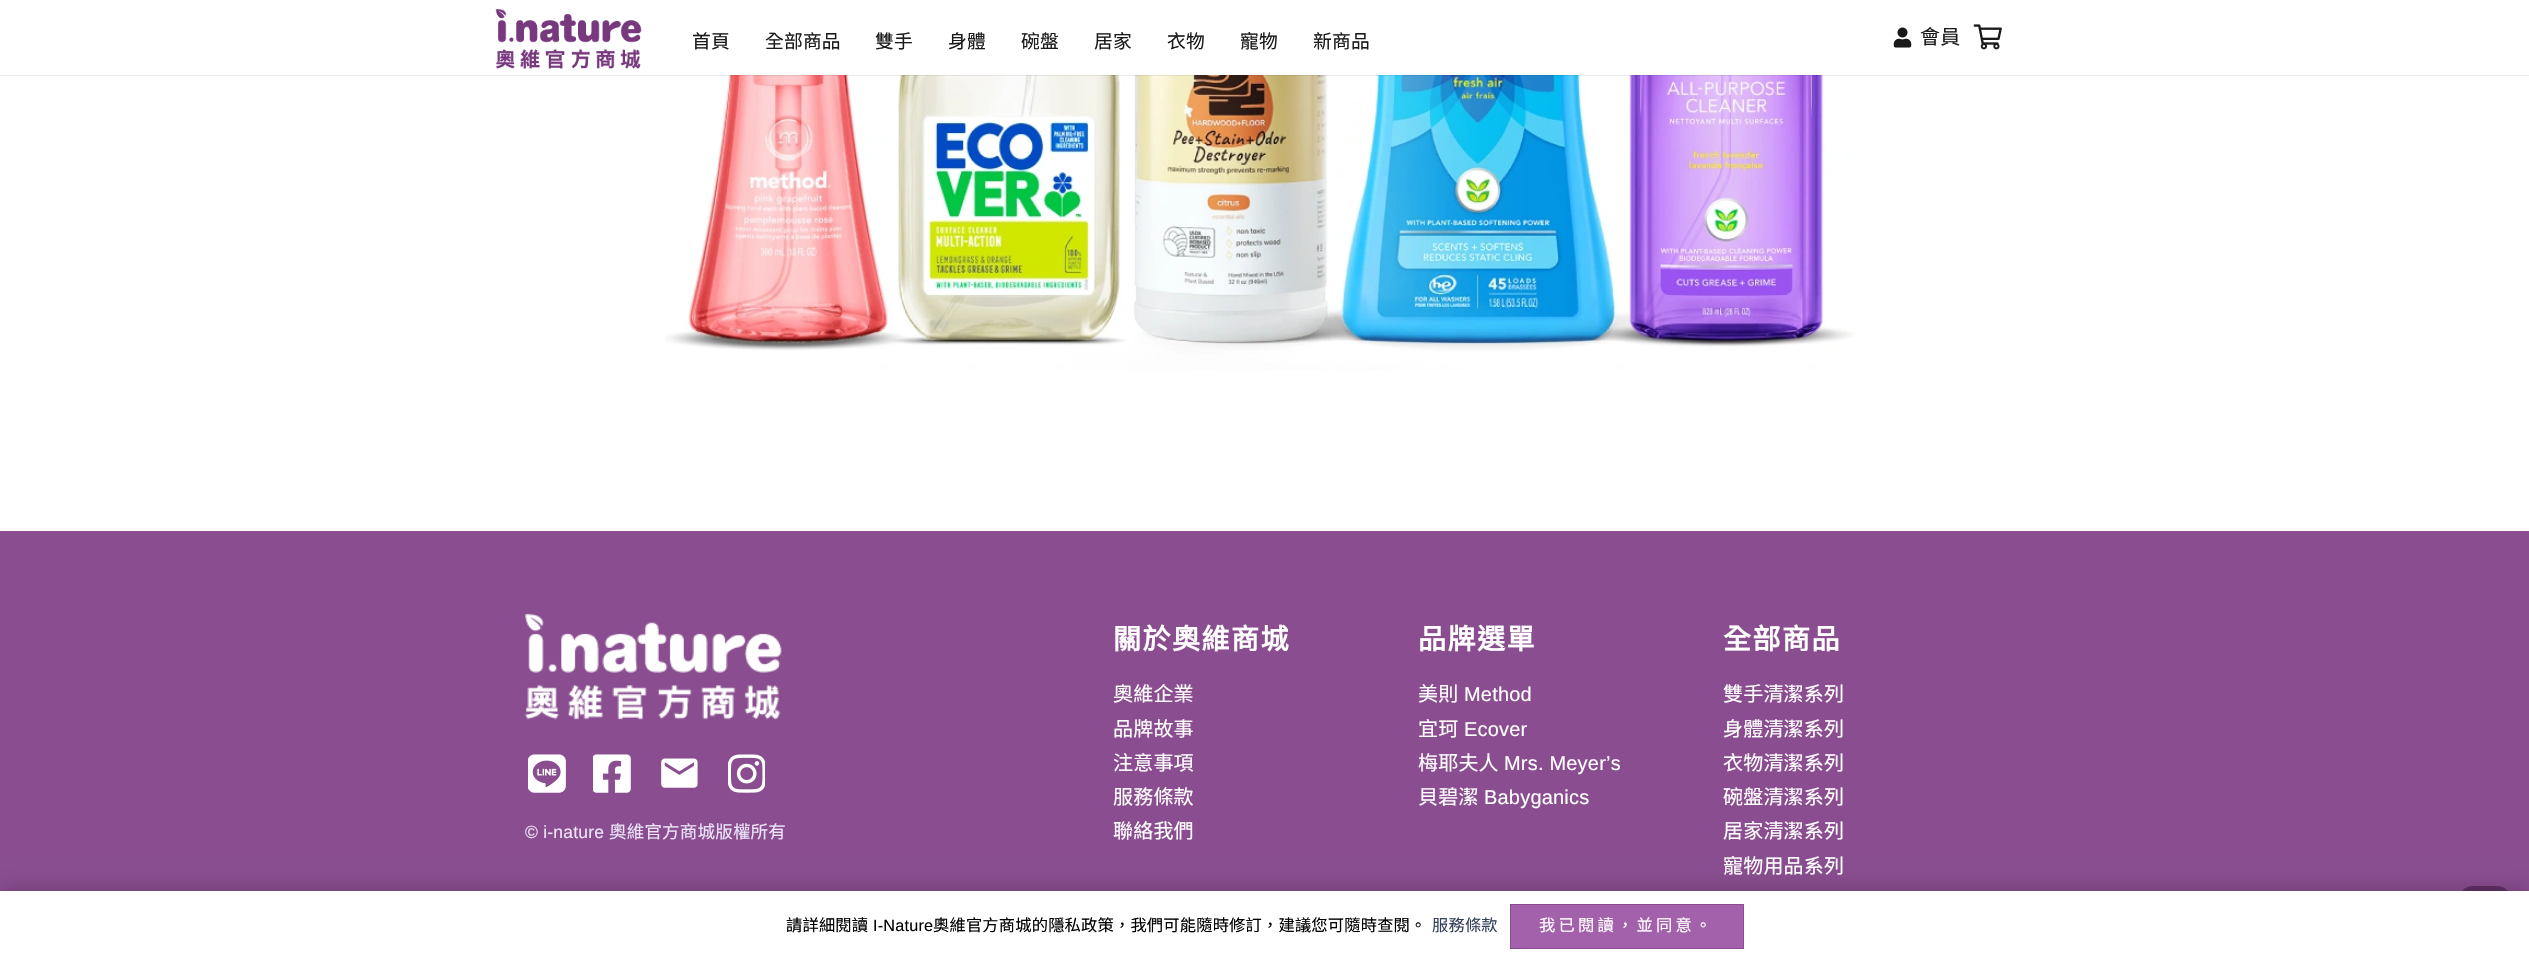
void draw(SkCanvas* canvas) {
	SkPaint fill;
	fill.setAntiAlias(true);
	auto makeFont = [&](const char* family, int weight, float size, bool italic = false) {
		SkFontStyle style(weight, SkFontStyle::kNormal_Width,
			italic ? SkFontStyle::kItalic_Slant : SkFontStyle::kUpright_Slant);
		SkFont result(fontMgr->matchFamilyStyle(family, style), size);
		result.setSubpixel(true);
		return result;
	};
	auto spacedText = [&](const char* s, float x, float y, const SkFont& font, const SkPaint& ink, float letter, float word) {
		std::vector<SkGlyphID> glyphs(font.countText(s, strlen(s), SkTextEncoding::kUTF8));
		std::vector<float> xs(glyphs.size());
		font.textToGlyphs(s, strlen(s), SkTextEncoding::kUTF8, glyphs);
		font.getXPos(glyphs, xs, x);
		float extra = 0;
		for (size_t i = 0; i < glyphs.size(); i++) {
			xs[i] += extra;
			extra += letter + word * (glyphs[i] == font.unicharToGlyph(' '));
		}
		canvas->drawTextBlob(SkTextBlob::MakeFromPosHGlyphs(glyphs, xs, y, font), 0, 0, ink);
	};
	auto box = [&](float l, float t, float r, float b) {
		canvas->drawRect(SkRect::MakeLTRB(l, t, r, b), fill);
	};
	auto roundBox = [&](float l, float t, float r, float b, float radius) {
		canvas->drawRoundRect(SkRect::MakeLTRB(l, t, r, b), radius, radius, fill);
	};
	auto picture = [&](const char* path, float l, float t, float r, float b) {
		auto image = SkImages::DeferredFromEncodedData(SkData::MakeFromFileName(path));
		canvas->drawImageRect(image, SkRect::MakeLTRB(l, t, r, b), SkSamplingOptions());
	};
	canvas->clear(0xFFFFFFFF);
	picture("image3.png", 665, 75, 1854, 371);
	fill.setColor(0x14000000);
	box(0, 75, 2529, 76);
	picture("image0.png", 495, 9, 642, 69);
	picture("image1.png", 1893, 27, 1912, 48);
	picture("image2.png", 1973, 24, 2002, 50);
	fill.setColor(0xFF8A4E90);
	box(0, 531, 2529, 891);
	picture("image4.png", 524, 613, 782, 720);
	picture("image5.png", 528, 754, 566, 793);
	picture("image6.png", 593, 754, 631, 793);
	picture("image7.png", 661, 758, 698, 788);
	picture("image8.png", 728, 754, 765, 793);
	fill.setColor(0xFF612F66);
	roundBox(2459, 886, 2511, 943, 14);
	fill.setColor(0x26000000);
	fill.setMaskFilter(SkMaskFilter::MakeBlur(kNormal_SkBlurStyle, 9.5f));
	canvas->drawRect(SkRect::MakeLTRB(0, 885, 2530, 955), fill);
	fill.setMaskFilter(nullptr);
	fill.setColor(0xFFFFFFFF);
	box(0, 891, 2529, 961);
	fill.setColor(0xFFA461AB);
	box(1511, 905, 1743, 948);
	fill.setStyle(SkPaint::kStroke_Style);
	fill.setStrokeWidth(1);
	fill.setColor(0xFF8A4E90);
	canvas->drawRect(SkRect::MakeLTRB(1510.5f, 904.5f, 1743.5f, 948.5f), fill);
	auto font1 = makeFont("Noto Sans CJK TC", 400, 18.75f);
	fill.setStyle(SkPaint::kFill_Style);
	fill.setColor(0xFF1A1A1A);
	spacedText("首頁", 692, 48, font1, fill, 0.2f, 0);
	spacedText("全部商品", 765, 48, font1, fill, 0.2f, 0);
	spacedText("雙手", 875, 48, font1, fill, 0.2f, 0);
	spacedText("身體", 948, 48, font1, fill, 0.2f, 0);
	spacedText("碗盤", 1021, 48, font1, fill, 0.2f, 0);
	spacedText("居家", 1094, 48, font1, fill, 0.2f, 0);
	spacedText("衣物", 1167, 48, font1, fill, 0.2f, 0);
	spacedText("寵物", 1240, 48, font1, fill, 0.2f, 0);
	spacedText("新商品", 1313, 48, font1, fill, 0.2f, 0);
	auto font2 = makeFont("Noto Sans CJK TC", 400, 20);
	spacedText("會員", 1920, 44, font2, fill, 0.2f, 0);
	auto font3 = makeFont("Liberation Sans", 400, 17.5f);
	fill.setColor(0xFFEBE4F8);
	spacedText("© i-nature", 525, 838, font3, fill, 0.2f, 0);
	auto font4 = makeFont("Noto Sans CJK TC", 400, 17.5f);
	spacedText("奧維官方商城版權所有", 609, 838, font4, fill, 0.2f, 0);
	auto font5 = makeFont("Noto Sans CJK TC", 700, 28);
	fill.setColor(0xFFFFFFFF);
	spacedText("關於奧維商城", 1113, 649, font5, fill, 1.5f, 0);
	spacedText("奧維企業", 1113, 701, font2, fill, 0.2f, 0);
	spacedText("品牌故事", 1113, 736, font2, fill, 0.2f, 0);
	spacedText("注意事項", 1113, 770, font2, fill, 0.2f, 0);
	spacedText("服務條款", 1113, 804, font2, fill, 0.2f, 0);
	spacedText("聯絡我們", 1113, 838, font2, fill, 0.2f, 0);
	spacedText("品牌選單", 1418, 649, font5, fill, 1.5f, 0);
	spacedText("美則", 1418, 701, font2, fill, 0.2f, 0);
	auto font6 = makeFont("Liberation Sans", 400, 20);
	spacedText("Method", 1464, 701, font6, fill, 0.2f, 0);
	spacedText("宜珂", 1418, 736, font2, fill, 0.2f, 0);
	spacedText("Ecover", 1464, 736, font6, fill, 0.2f, 0);
	spacedText("梅耶夫人", 1418, 770, font2, fill, 0.2f, 0);
	spacedText("Mrs. Meyer’s", 1504, 770, font6, fill, 0.2f, 0);
	spacedText("貝碧潔", 1418, 804, font2, fill, 0.2f, 0);
	spacedText("Babyganics", 1484, 804, font6, fill, 0.2f, 0);
	spacedText("全部商品", 1723, 649, font5, fill, 1.5f, 0);
	spacedText("雙手清潔系列", 1723, 701, font2, fill, 0.2f, 0);
	spacedText("身體清潔系列", 1723, 736, font2, fill, 0.2f, 0);
	spacedText("衣物清潔系列", 1723, 770, font2, fill, 0.2f, 0);
	spacedText("碗盤清潔系列", 1723, 804, font2, fill, 0.2f, 0);
	spacedText("居家清潔系列", 1723, 838, font2, fill, 0.2f, 0);
	spacedText("寵物用品系列", 1723, 873, font2, fill, 0.2f, 0);
	auto font7 = makeFont("Noto Sans CJK TC", 400, 16.25f);
	fill.setColor(0xFF000000);
	spacedText("請詳細閱讀", 786, 931, font7, fill, 0.2f, 0);
	auto font8 = makeFont("Liberation Sans", 400, 16.25f);
	spacedText("I-Nature", 873, 931, font8, fill, 0.2f, 0);
	spacedText("奧維官方商城的隱私政策，我們可能隨時修訂，建議您可隨時查閱。", 933, 931, font7, fill, 0.2f, 0);
	fill.setColor(0xFF35415B);
	spacedText("服務條款", 1432, 931, font7, fill, 0.2f, 0);
	fill.setColor(0xFFFFFFFF);
	spacedText("我已閱讀，並同意。", 1539, 931, font7, fill, 3.25f, 0);
}
